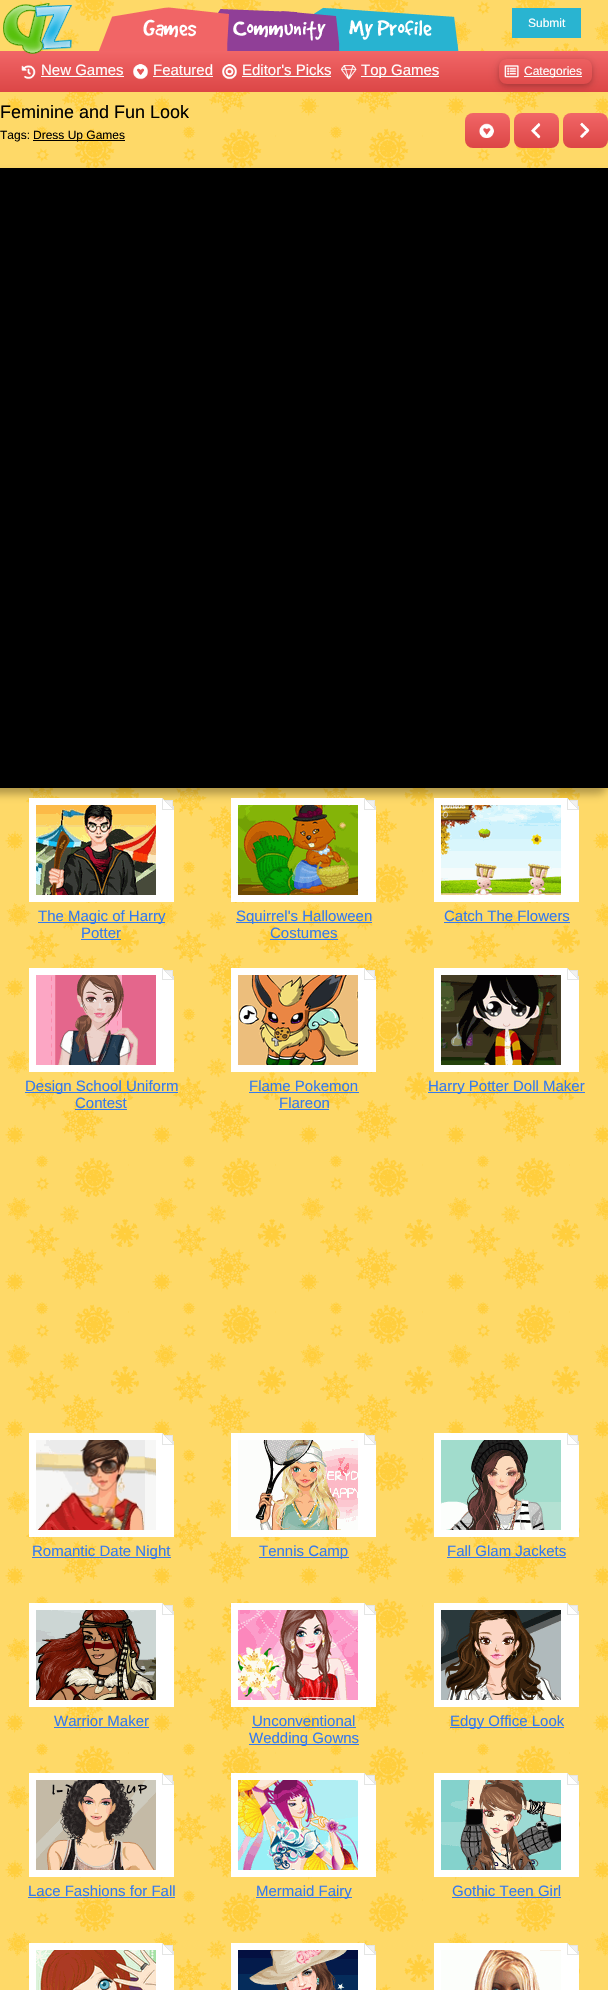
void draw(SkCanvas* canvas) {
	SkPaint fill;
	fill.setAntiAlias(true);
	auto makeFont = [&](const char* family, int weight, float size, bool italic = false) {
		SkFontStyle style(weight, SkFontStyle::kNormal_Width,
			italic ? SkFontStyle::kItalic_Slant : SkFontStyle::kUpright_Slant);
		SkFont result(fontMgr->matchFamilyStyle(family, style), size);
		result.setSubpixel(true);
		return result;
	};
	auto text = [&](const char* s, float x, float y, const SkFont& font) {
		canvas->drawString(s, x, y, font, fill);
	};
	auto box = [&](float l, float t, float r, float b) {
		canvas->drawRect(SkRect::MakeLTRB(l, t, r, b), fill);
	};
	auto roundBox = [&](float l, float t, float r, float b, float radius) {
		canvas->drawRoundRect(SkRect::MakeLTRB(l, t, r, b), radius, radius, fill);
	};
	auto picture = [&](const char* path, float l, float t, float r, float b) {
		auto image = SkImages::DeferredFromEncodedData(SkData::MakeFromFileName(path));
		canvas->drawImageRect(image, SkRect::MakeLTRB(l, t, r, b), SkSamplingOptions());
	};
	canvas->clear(0xFFFED968);
	picture("image0.png", 5, 0, 608, 1990);
	picture("image1.png", 98, 7, 459, 51);
	{
		const SkColor colors[] = {0xFFF16667, 0xFFDC4646};
		const float stops[] = {0, 1};
		const SkPoint ends[] = {{304, 51}, {304, 92}};
		fill.setShader(SkGradientShader::MakeLinear(ends, colors, stops, 2, SkTileMode::kClamp));
		fill.setAlpha(255);
	}
	box(0, 51, 608, 92);
	picture("image2.png", 3, 3, 72, 54);
	fill.setShader(nullptr);
	fill.setColor(0xFF29B4D1);
	box(512, 8, 581, 38);
	picture("image3.png", 21, 65, 36, 80);
	fill.setColor(0xFFFFFFFF);
	box(41, 76, 124, 77);
	picture("image4.png", 133, 64, 148, 80);
	box(153, 76, 213, 77);
	picture("image5.png", 222, 64, 237, 80);
	box(242, 76, 331, 77);
	picture("image6.png", 341, 65, 357, 80);
	box(361, 76, 439, 77);
	canvas->save();
	canvas->clipPath(SkPathBuilder(SkPathFillType::kEvenOdd).moveTo(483, 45).lineTo(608, 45).lineTo(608, 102).lineTo(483, 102).close().moveTo(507, 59).lineTo(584, 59).cubicTo(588.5f, 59, 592, 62.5f, 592, 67).lineTo(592, 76).cubicTo(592, 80.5f, 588.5f, 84, 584, 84).lineTo(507, 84).cubicTo(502.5f, 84, 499, 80.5f, 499, 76).lineTo(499, 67).cubicTo(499, 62.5f, 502.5f, 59, 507, 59).close().detach(), true);
	fill.setColor(0x1F000000);
	fill.setMaskFilter(SkMaskFilter::MakeBlur(kNormal_SkBlurStyle, 5));
	canvas->drawRoundRect(SkRect::MakeLTRB(499, 61, 592, 86), 8, 8, fill);
	fill.setMaskFilter(nullptr);
	canvas->restore();
	canvas->save();
	canvas->clipPath(SkPathBuilder(SkPathFillType::kEvenOdd).moveTo(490, 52).lineTo(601, 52).lineTo(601, 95).lineTo(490, 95).close().moveTo(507, 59).lineTo(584, 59).cubicTo(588.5f, 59, 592, 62.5f, 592, 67).lineTo(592, 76).cubicTo(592, 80.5f, 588.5f, 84, 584, 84).lineTo(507, 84).cubicTo(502.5f, 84, 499, 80.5f, 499, 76).lineTo(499, 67).cubicTo(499, 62.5f, 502.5f, 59, 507, 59).close().detach(), true);
	fill.setColor(0x29000000);
	fill.setMaskFilter(SkMaskFilter::MakeBlur(kNormal_SkBlurStyle, 2.5f));
	canvas->drawRoundRect(SkRect::MakeLTRB(499, 61, 592, 86), 8, 8, fill);
	fill.setMaskFilter(nullptr);
	canvas->restore();
	picture("image7.png", 504, 65, 519, 78);
	fill.setColor(0xFFFFFFFF);
	box(524, 76, 582, 77);
	fill.setColor(0xFF000000);
	box(33, 140, 125, 141);
	{
		const SkColor colors[] = {0xFFF16667, 0xFFDC4646};
		const float stops[] = {0, 1};
		const SkPoint ends[] = {{488, 113}, {488, 148}};
		fill.setShader(SkGradientShader::MakeLinear(ends, colors, stops, 2, SkTileMode::kClamp));
		fill.setAlpha(255);
	}
	roundBox(465, 113, 510, 148, 8);
	picture("image8.png", 479, 123, 494, 138);
	{
		const SkColor colors[] = {0xFFF16667, 0xFFDC4646};
		const float stops[] = {0, 1};
		const SkPoint ends[] = {{537, 113}, {537, 148}};
		fill.setShader(SkGradientShader::MakeLinear(ends, colors, stops, 2, SkTileMode::kClamp));
		fill.setAlpha(255);
	}
	roundBox(514, 113, 559, 148, 8);
	picture("image9.png", 531, 123, 541, 139);
	{
		const SkColor colors[] = {0xFFF16667, 0xFFDC4646};
		const float stops[] = {0, 1};
		const SkPoint ends[] = {{586, 113}, {586, 148}};
		fill.setShader(SkGradientShader::MakeLinear(ends, colors, stops, 2, SkTileMode::kClamp));
		fill.setAlpha(255);
	}
	roundBox(563, 113, 608, 148, 8);
	picture("image10.png", 580, 122, 590, 138);
	fill.setShader(nullptr);
	fill.setColor(0x4D000000);
	fill.setMaskFilter(SkMaskFilter::MakeBlur(kNormal_SkBlurStyle, 4));
	canvas->drawRoundRect(SkRect::MakeLTRB(-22, 174, 608, 794), 10, 10, fill);
	fill.setMaskFilter(nullptr);
	fill.setColor(0xFF000000);
	box(0, 168, 608, 788);
	picture("image11.png", 29, 798, 174, 902);
	fill.setColor(0xFF367AEE);
	box(38, 922, 165, 923);
	box(81, 939, 121, 940);
	picture("image12.png", 231, 798, 376, 902);
	box(236, 922, 372, 923);
	box(270, 939, 338, 940);
	picture("image13.png", 434, 798, 579, 902);
	box(444, 922, 570, 923);
	picture("image14.png", 29, 968, 174, 1072);
	box(25, 1092, 178, 1093);
	box(75, 1109, 127, 1110);
	picture("image15.png", 231, 968, 376, 1072);
	box(249, 1092, 359, 1093);
	box(279, 1109, 329, 1110);
	picture("image16.png", 434, 968, 579, 1072);
	box(428, 1092, 585, 1093);
	picture("image17.png", 29, 1433, 174, 1537);
	box(32, 1557, 171, 1558);
	picture("image18.png", 231, 1433, 376, 1537);
	box(259, 1557, 349, 1558);
	picture("image19.png", 434, 1433, 579, 1537);
	box(447, 1557, 566, 1558);
	picture("image20.png", 29, 1603, 174, 1707);
	box(54, 1727, 149, 1728);
	picture("image21.png", 231, 1603, 376, 1707);
	box(252, 1727, 356, 1728);
	box(249, 1744, 359, 1745);
	picture("image22.png", 434, 1603, 579, 1707);
	box(450, 1727, 564, 1728);
	picture("image23.png", 29, 1773, 174, 1877);
	box(28, 1897, 175, 1898);
	picture("image24.png", 231, 1773, 376, 1877);
	box(256, 1897, 352, 1898);
	picture("image25.png", 434, 1773, 579, 1877);
	box(452, 1897, 561, 1898);
	picture("image26.png", 29, 1943, 174, 1990);
	picture("image27.png", 231, 1943, 376, 1990);
	picture("image28.png", 434, 1943, 579, 1990);
	auto font1 = makeFont("Liberation Sans", 400, 12);
	fill.setColor(0xFFFFFFFF);
	text("Submit", 528, 27, font1);
	auto font2 = makeFont("Liberation Sans", 400, 15);
	text("New Games", 41, 75, font2);
	text("Featured", 153, 75, font2);
	text("Editor's Picks", 242, 75, font2);
	text("Top Games", 361, 75, font2);
	text("Categories", 524, 75, font1);
	auto font3 = makeFont("Liberation Sans", 400, 18);
	fill.setColor(0xFF000000);
	text("Feminine and Fun Look", 0, 118, font3);
	text("Tags:", 0, 139, font1);
	text("Dress Up Games", 33, 139, font1);
	fill.setColor(0xFF367AEE);
	text("The Magic of Harry", 38, 921, font2);
	text("Potter", 81, 938, font2);
	text("Squirrel's Halloween", 236, 921, font2);
	text("Costumes", 270, 938, font2);
	text("Catch The Flowers", 444, 921, font2);
	text("Design School Uniform", 25, 1091, font2);
	text("Contest", 75, 1108, font2);
	text("Flame Pokemon", 249, 1091, font2);
	text("Flareon", 279, 1108, font2);
	text("Harry Potter Doll Maker", 428, 1091, font2);
	text("Romantic Date Night", 32, 1556, font2);
	text("Tennis Camp", 259, 1556, font2);
	text("Fall Glam Jackets", 447, 1556, font2);
	text("Warrior Maker", 54, 1726, font2);
	text("Unconventional", 252, 1726, font2);
	text("Wedding Gowns", 249, 1743, font2);
	text("Edgy Office Look", 450, 1726, font2);
	text("Lace Fashions for Fall", 28, 1896, font2);
	text("Mermaid Fairy", 256, 1896, font2);
	text("Gothic Teen Girl", 452, 1896, font2);
}
